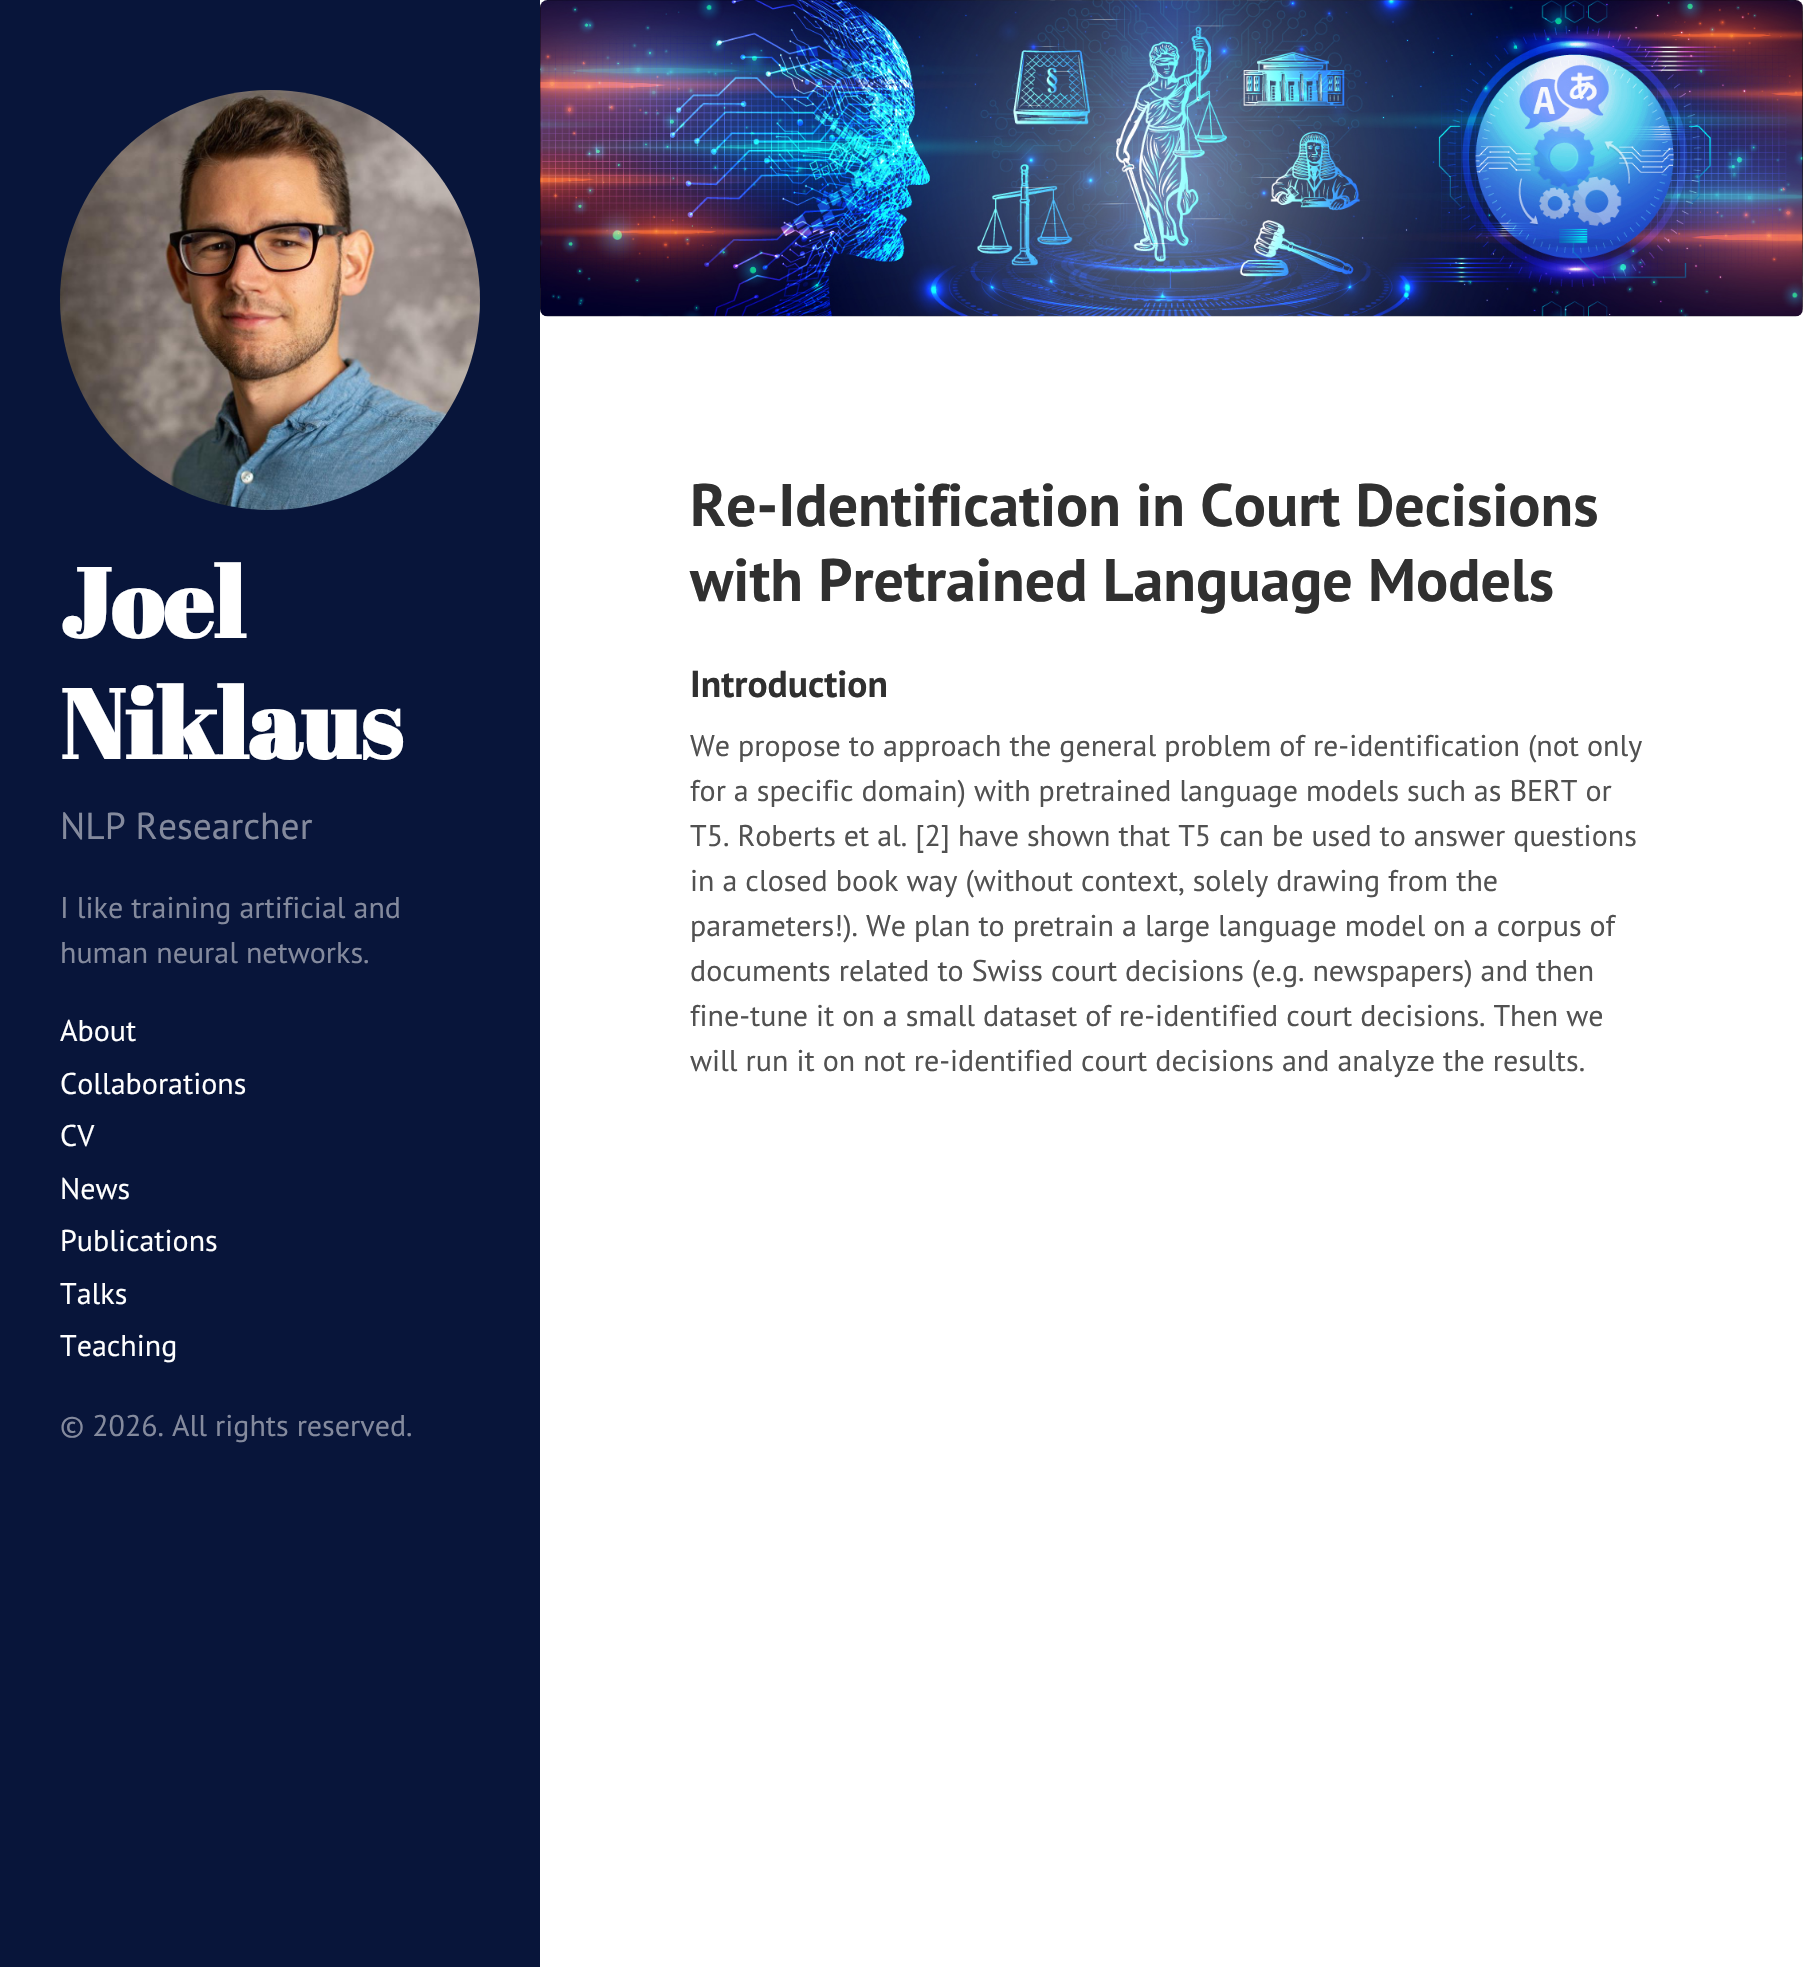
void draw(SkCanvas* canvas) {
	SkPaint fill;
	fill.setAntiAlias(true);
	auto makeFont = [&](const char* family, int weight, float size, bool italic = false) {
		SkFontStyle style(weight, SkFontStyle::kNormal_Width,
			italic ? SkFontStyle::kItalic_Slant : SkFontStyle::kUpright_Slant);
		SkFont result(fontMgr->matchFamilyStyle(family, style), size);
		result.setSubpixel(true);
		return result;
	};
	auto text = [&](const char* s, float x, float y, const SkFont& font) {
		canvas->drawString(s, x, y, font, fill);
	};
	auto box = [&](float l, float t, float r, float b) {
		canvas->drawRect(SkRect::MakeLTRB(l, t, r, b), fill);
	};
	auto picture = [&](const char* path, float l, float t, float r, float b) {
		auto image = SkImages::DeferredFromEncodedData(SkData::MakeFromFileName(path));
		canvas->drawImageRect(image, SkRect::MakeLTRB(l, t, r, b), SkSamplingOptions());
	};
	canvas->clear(0xFFFFFFFF);
	picture("image0.png", 540, 0, 1803, 317);
	fill.setColor(0xFF08153A);
	box(0, 0, 540, 1967);
	picture("image1.png", 60, 90, 480, 510);
	auto font1 = makeFont("Abril Fatface", 700, 97.5f);
	fill.setColor(0xFFFFFFFF);
	text("Joel", 60, 638, font1);
	text("Niklaus", 60, 759, font1);
	auto font2 = makeFont("PT Sans", 400, 37.5f);
	fill.setColor(0xFF848A9D);
	text("NLP Researcher", 60, 839, font2);
	auto font3 = makeFont("PT Sans", 400, 30);
	text("I like training artificial and", 60, 918, font3);
	text("human neural networks.", 60, 963, font3);
	fill.setColor(0xFFFFFFFF);
	text("About", 60, 1041, font3);
	text("Collaborations", 60, 1094, font3);
	text("CV", 60, 1146, font3);
	text("News", 60, 1199, font3);
	text("Publications", 60, 1251, font3);
	text("Talks", 60, 1304, font3);
	text("Teaching", 60, 1356, font3);
	fill.setColor(0xFF848A9D);
	text("© 2026. All rights reserved.", 60, 1436, font3);
	auto font4 = makeFont("PT Sans", 700, 60);
	fill.setColor(0xFF303030);
	text("Re-Identification in Court Decisions", 690, 526, font4);
	text("with Pretrained Language Models", 690, 601, font4);
	auto font5 = makeFont("PT Sans", 700, 37.5f);
	text("Introduction", 690, 697, font5);
	fill.setColor(0xFF515151);
	text("We propose to approach the general problem of re-identification (not only", 690, 756, font3);
	text("for a specific domain) with pretrained language models such as BERT or", 690, 801, font3);
	text("T5. Roberts et al. [2] have shown that T5 can be used to answer questions", 690, 846, font3);
	text("in a closed book way (without context, solely drawing from the", 690, 891, font3);
	text("parameters!). We plan to pretrain a large language model on a corpus of", 690, 936, font3);
	text("documents related to Swiss court decisions (e.g. newspapers) and then", 690, 981, font3);
	text("fine-tune it on a small dataset of re-identified court decisions. Then we", 690, 1026, font3);
	text("will run it on not re-identified court decisions and analyze the results.", 690, 1071, font3);
}
